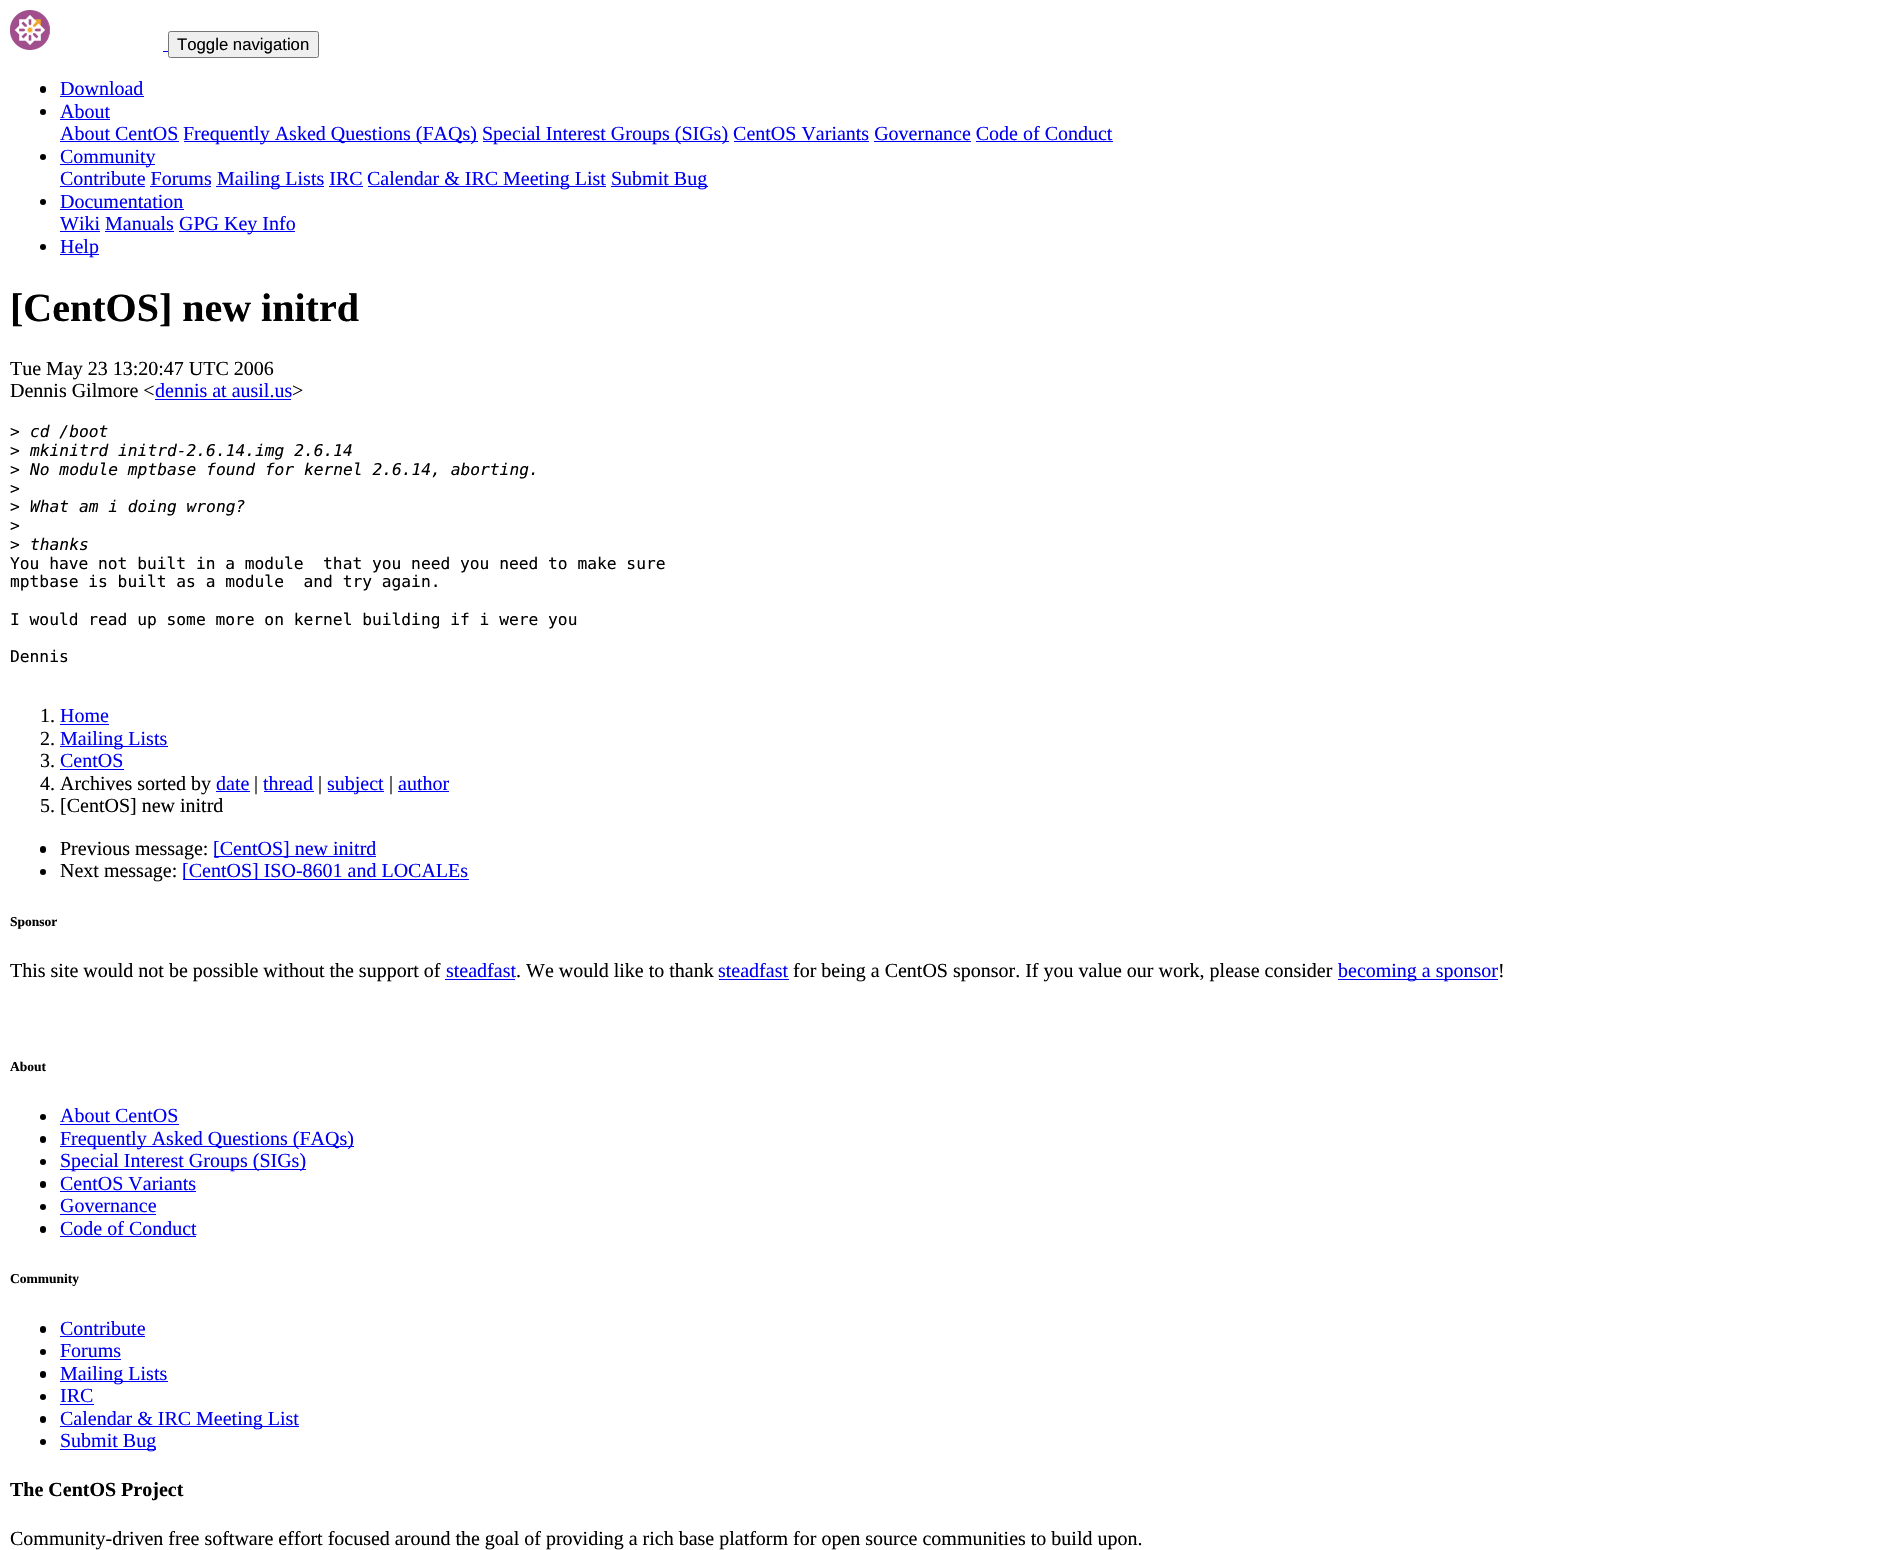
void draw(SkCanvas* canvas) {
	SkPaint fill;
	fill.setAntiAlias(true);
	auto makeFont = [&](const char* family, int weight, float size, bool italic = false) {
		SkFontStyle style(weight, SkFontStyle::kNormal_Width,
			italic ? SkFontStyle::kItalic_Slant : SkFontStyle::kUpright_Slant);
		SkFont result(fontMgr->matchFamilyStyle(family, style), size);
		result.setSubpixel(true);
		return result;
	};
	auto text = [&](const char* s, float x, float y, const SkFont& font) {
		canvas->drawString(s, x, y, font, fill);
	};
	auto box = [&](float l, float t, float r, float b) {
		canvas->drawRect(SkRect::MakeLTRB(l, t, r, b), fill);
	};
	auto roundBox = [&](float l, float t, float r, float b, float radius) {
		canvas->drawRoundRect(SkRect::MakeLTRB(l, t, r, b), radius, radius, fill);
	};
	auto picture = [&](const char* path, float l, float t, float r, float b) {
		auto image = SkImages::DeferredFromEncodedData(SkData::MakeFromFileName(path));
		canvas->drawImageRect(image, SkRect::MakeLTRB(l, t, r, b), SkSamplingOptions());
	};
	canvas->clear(0xFFFFFFFF);
	picture("image0.png", 10, 10, 50, 50);
	fill.setColor(0xFF0000EE);
	box(163, 51, 168, 52);
	fill.setColor(0xFFEFEFEF);
	canvas->drawRoundRect(SkRect::MakeLTRB(168.5f, 31.5f, 318.5f, 57.5f), 2, 2, fill);
	fill.setStyle(SkPaint::kStroke_Style);
	fill.setStrokeWidth(1);
	fill.setColor(0xFF767676);
	canvas->drawRoundRect(SkRect::MakeLTRB(168.5f, 31.5f, 318.5f, 57.5f), 2, 2, fill);
	fill.setStyle(SkPaint::kFill_Style);
	fill.setColor(0xFF000000);
	roundBox(40, 86, 46, 93, 3);
	fill.setColor(0xFF0000EE);
	box(60, 96, 144, 97);
	fill.setColor(0xFF000000);
	canvas->drawCircle(43, 112, 3, fill);
	fill.setColor(0xFF0000EE);
	box(60, 119, 110, 120);
	box(60, 141, 179, 142);
	box(184, 141, 478, 142);
	box(483, 141, 729, 142);
	box(734, 141, 869, 142);
	box(874, 141, 971, 142);
	box(976, 141, 1113, 142);
	fill.setColor(0xFF000000);
	canvas->drawCircle(43, 157, 3, fill);
	fill.setColor(0xFF0000EE);
	box(60, 164, 155, 165);
	box(60, 186, 145, 187);
	box(216, 186, 324, 187);
	box(368, 186, 606, 187);
	box(611, 186, 708, 187);
	box(150, 186, 211, 187);
	box(329, 186, 363, 187);
	fill.setColor(0xFF000000);
	canvas->drawCircle(43, 202, 3, fill);
	fill.setColor(0xFF0000EE);
	box(60, 209, 184, 210);
	box(60, 231, 100, 232);
	box(179, 231, 295, 232);
	box(105, 231, 174, 232);
	fill.setColor(0xFF000000);
	canvas->drawCircle(43, 247, 3, fill);
	fill.setColor(0xFF0000EE);
	box(60, 254, 99, 255);
	box(155, 399, 291, 400);
	box(60, 724, 109, 725);
	box(60, 746, 168, 747);
	box(60, 769, 124, 770);
	box(216, 791, 250, 792);
	box(264, 791, 314, 792);
	box(328, 791, 384, 792);
	box(398, 791, 449, 792);
	fill.setColor(0xFF000000);
	roundBox(40, 846, 46, 853, 3);
	fill.setColor(0xFF0000EE);
	box(214, 856, 376, 857);
	fill.setColor(0xFF000000);
	canvas->drawCircle(43, 872, 3, fill);
	fill.setColor(0xFF0000EE);
	box(183, 879, 469, 880);
	box(445, 979, 515, 980);
	box(719, 979, 789, 980);
	box(1338, 979, 1498, 980);
	fill.setColor(0xFF000000);
	canvas->drawCircle(43, 1117, 3, fill);
	fill.setColor(0xFF0000EE);
	box(60, 1124, 179, 1125);
	fill.setColor(0xFF000000);
	roundBox(40, 1136, 46, 1143, 3);
	fill.setColor(0xFF0000EE);
	box(60, 1146, 354, 1147);
	fill.setColor(0xFF000000);
	canvas->drawCircle(43, 1162, 3, fill);
	fill.setColor(0xFF0000EE);
	box(60, 1169, 306, 1170);
	fill.setColor(0xFF000000);
	roundBox(40, 1181, 46, 1188, 3);
	fill.setColor(0xFF0000EE);
	box(60, 1191, 196, 1192);
	fill.setColor(0xFF000000);
	canvas->drawCircle(43, 1207, 3, fill);
	fill.setColor(0xFF0000EE);
	box(60, 1214, 156, 1215);
	fill.setColor(0xFF000000);
	roundBox(40, 1226, 46, 1233, 3);
	fill.setColor(0xFF0000EE);
	box(60, 1236, 196, 1237);
	fill.setColor(0xFF000000);
	roundBox(40, 1326, 46, 1333, 3);
	fill.setColor(0xFF0000EE);
	box(60, 1336, 145, 1337);
	fill.setColor(0xFF000000);
	canvas->drawCircle(43, 1352, 3, fill);
	fill.setColor(0xFF0000EE);
	box(60, 1359, 121, 1360);
	fill.setColor(0xFF000000);
	roundBox(40, 1371, 46, 1378, 3);
	fill.setColor(0xFF0000EE);
	box(60, 1381, 168, 1382);
	fill.setColor(0xFF000000);
	canvas->drawCircle(43, 1397, 3, fill);
	fill.setColor(0xFF0000EE);
	box(60, 1404, 94, 1405);
	fill.setColor(0xFF000000);
	roundBox(40, 1416, 46, 1423, 3);
	fill.setColor(0xFF0000EE);
	box(60, 1426, 299, 1427);
	fill.setColor(0xFF000000);
	canvas->drawCircle(43, 1442, 3, fill);
	fill.setColor(0xFF0000EE);
	box(60, 1449, 156, 1450);
	auto font1 = makeFont("Liberation Sans", 400, 16.75f);
	fill.setColor(0xFF000000);
	text("Toggle navigation", 177, 50, font1);
	auto font2 = makeFont("Liberation Serif", 400, 20);
	fill.setColor(0xFF0000EE);
	text("Download", 60, 95, font2);
	text("About", 60, 118, font2);
	text("About CentOS", 60, 140, font2);
	text("Frequently Asked Questions (FAQs)", 183, 140, font2);
	text("Special Interest Groups (SIGs) CentOS Variants Governance Code of Conduct", 482, 140, font2);
	text("Community", 60, 163, font2);
	text("Contribute Forums", 60, 185, font2);
	text("Mailing Lists IRC", 217, 185, font2);
	text("Calendar & IRC Meeting List", 367, 185, font2);
	text("Submit Bug", 611, 185, font2);
	text("Documentation", 60, 208, font2);
	text("Wiki Manuals", 60, 230, font2);
	text("GPG Key Info", 179, 230, font2);
	text("Help", 60, 253, font2);
	auto font3 = makeFont("Liberation Serif", 700, 40);
	fill.setColor(0xFF000000);
	text("[CentOS] new initrd", 10, 321, font3);
	text("Tue May 23 13:20:47 UTC 2006", 10, 375, font2);
	text("Dennis Gilmore <", 10, 397, font2);
	fill.setColor(0xFF0000EE);
	text("dennis at ausil.us", 155, 397, font2);
	fill.setColor(0xFF000000);
	text(">", 292, 397, font2);
	auto font4 = makeFont("DejaVu Sans Mono", 400, 16.25f);
	text(">", 10, 437, font4);
	auto font5 = makeFont("DejaVu Sans Mono", 400, 16.25f, true);
	text("cd /boot", 30, 437, font5);
	text(">", 10, 456, font4);
	text("mkinitrd initrd-2.6.14.img 2.6.14", 30, 456, font5);
	text(">", 10, 475, font4);
	text("No module mptbase found for kernel 2.6.14, aborting.", 30, 475, font5);
	text(">", 10, 494, font4);
	text(">", 10, 512, font4);
	text("What am i doing wrong?", 30, 512, font5);
	text(">", 10, 531, font4);
	text(">", 10, 550, font4);
	text("thanks", 30, 550, font5);
	text("You have not built in a module  that you need you need to make sure", 10, 569, font4);
	text("mptbase is built as a module  and try again.", 10, 587, font4);
	text("I would read up some more on kernel building if i were you", 10, 625, font4);
	text("Dennis", 10, 662, font4);
	text("1.", 40, 722, font2);
	fill.setColor(0xFF0000EE);
	text("Home", 60, 722, font2);
	fill.setColor(0xFF000000);
	text("2.", 40, 745, font2);
	fill.setColor(0xFF0000EE);
	text("Mailing Lists", 60, 745, font2);
	fill.setColor(0xFF000000);
	text("3.", 40, 767, font2);
	fill.setColor(0xFF0000EE);
	text("CentOS", 60, 767, font2);
	fill.setColor(0xFF000000);
	text("4. Archives sorted by", 40, 790, font2);
	fill.setColor(0xFF0000EE);
	text("date", 216, 790, font2);
	fill.setColor(0xFF000000);
	text("|", 254, 790, font2);
	fill.setColor(0xFF0000EE);
	text("thread", 263, 790, font2);
	fill.setColor(0xFF000000);
	text("|", 318, 790, font2);
	fill.setColor(0xFF0000EE);
	text("subject", 327, 790, font2);
	fill.setColor(0xFF000000);
	text("|", 389, 790, font2);
	fill.setColor(0xFF0000EE);
	text("author", 398, 790, font2);
	fill.setColor(0xFF000000);
	text("5. [CentOS] new initrd", 40, 812, font2);
	text("Previous message:", 60, 855, font2);
	fill.setColor(0xFF0000EE);
	text("[CentOS] new initrd", 213, 855, font2);
	fill.setColor(0xFF000000);
	text("Next message:", 60, 877, font2);
	fill.setColor(0xFF0000EE);
	text("[CentOS] ISO-8601 and LOCALEs", 182, 877, font2);
	auto font6 = makeFont("Liberation Serif", 700, 13.5f);
	fill.setColor(0xFF000000);
	text("Sponsor", 10, 926, font6);
	text("This site would not be possible without the support of", 10, 977, font2);
	fill.setColor(0xFF0000EE);
	text("steadfast", 446, 977, font2);
	fill.setColor(0xFF000000);
	text(". We would like to thank", 516, 977, font2);
	fill.setColor(0xFF0000EE);
	text("steadfast", 718, 977, font2);
	fill.setColor(0xFF000000);
	text("for being a CentOS sponsor. If you value our work, please consider", 793, 977, font2);
	fill.setColor(0xFF0000EE);
	text("becoming a sponsor", 1338, 977, font2);
	fill.setColor(0xFF000000);
	text("!", 1498, 977, font2);
	text("About", 10, 1071, font6);
	fill.setColor(0xFF0000EE);
	text("About CentOS", 60, 1122, font2);
	text("Frequently Asked Questions (FAQs)", 60, 1145, font2);
	text("Special Interest Groups (SIGs)", 60, 1167, font2);
	text("CentOS Variants", 60, 1190, font2);
	text("Governance", 60, 1212, font2);
	text("Code of Conduct", 60, 1235, font2);
	fill.setColor(0xFF000000);
	text("Community", 10, 1283, font6);
	fill.setColor(0xFF0000EE);
	text("Contribute", 60, 1335, font2);
	text("Forums", 60, 1357, font2);
	text("Mailing Lists", 60, 1380, font2);
	text("IRC", 60, 1402, font2);
	text("Calendar & IRC Meeting List", 60, 1425, font2);
	text("Submit Bug", 60, 1447, font2);
	auto font7 = makeFont("Liberation Serif", 700, 20);
	fill.setColor(0xFF000000);
	text("The CentOS Project", 10, 1496, font7);
	text("Community-driven free software effort focused around the goal of providing a rich base platform for open source communities to build upon.", 10, 1545, font2);
}
